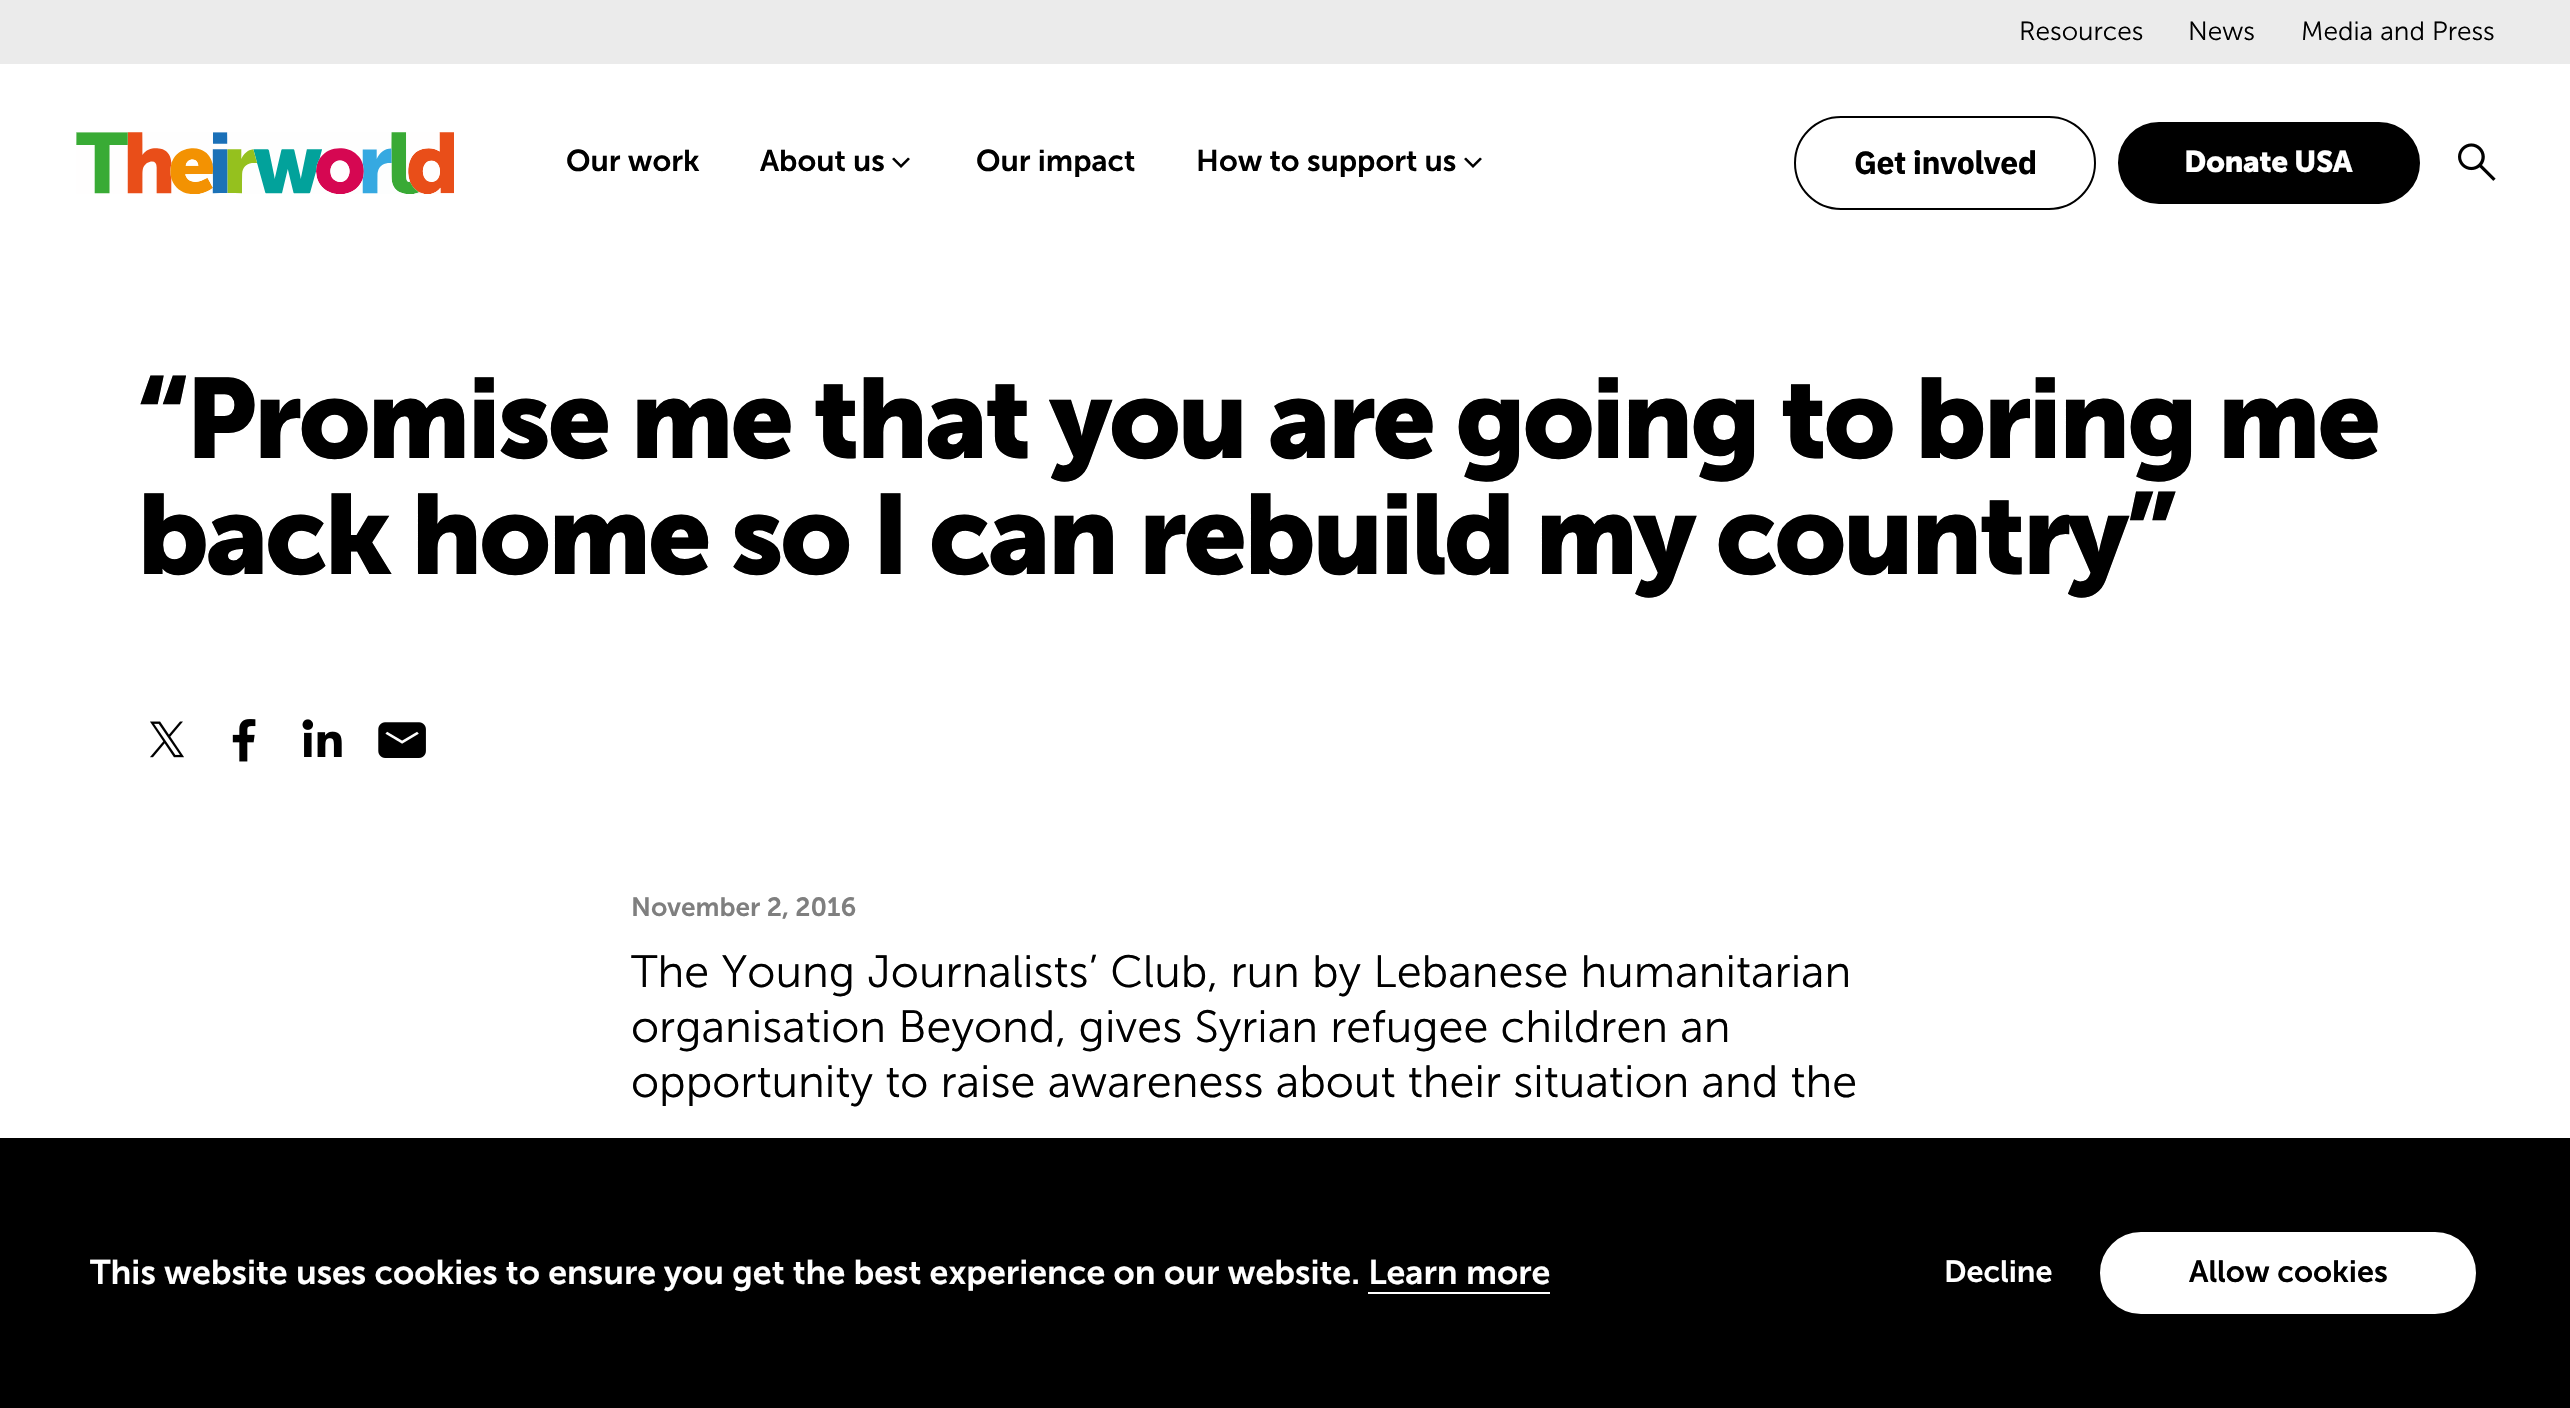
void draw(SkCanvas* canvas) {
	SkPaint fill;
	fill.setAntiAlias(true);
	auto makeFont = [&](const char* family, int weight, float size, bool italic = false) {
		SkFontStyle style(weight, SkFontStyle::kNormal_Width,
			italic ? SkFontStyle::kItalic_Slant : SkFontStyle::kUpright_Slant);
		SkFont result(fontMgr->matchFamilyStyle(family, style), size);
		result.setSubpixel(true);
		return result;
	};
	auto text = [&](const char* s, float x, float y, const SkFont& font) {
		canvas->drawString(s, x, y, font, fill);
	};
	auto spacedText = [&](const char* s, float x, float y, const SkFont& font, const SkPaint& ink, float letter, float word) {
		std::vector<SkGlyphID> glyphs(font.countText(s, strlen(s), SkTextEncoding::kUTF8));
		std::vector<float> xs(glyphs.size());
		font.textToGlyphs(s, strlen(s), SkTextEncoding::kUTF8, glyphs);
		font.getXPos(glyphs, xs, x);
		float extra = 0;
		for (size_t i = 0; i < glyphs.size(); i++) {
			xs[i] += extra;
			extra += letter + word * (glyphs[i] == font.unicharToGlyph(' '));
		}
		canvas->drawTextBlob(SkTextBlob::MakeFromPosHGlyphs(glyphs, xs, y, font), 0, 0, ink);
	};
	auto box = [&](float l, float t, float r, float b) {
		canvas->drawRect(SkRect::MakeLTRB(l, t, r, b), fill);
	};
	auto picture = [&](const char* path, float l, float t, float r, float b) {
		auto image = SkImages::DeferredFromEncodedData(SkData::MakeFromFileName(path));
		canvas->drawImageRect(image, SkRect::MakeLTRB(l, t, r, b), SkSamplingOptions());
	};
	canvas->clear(0xFFFFFFFF);
	fill.setColor(0xFFEBEBEB);
	box(0, 0, 2570, 64);
	picture("image0.png", 76, 132, 454, 194);
	fill.setColor(0xFF000000);
	canvas->drawPath(SkPathBuilder().moveTo(901, 168).lineTo(892, 159).lineTo(894, 157.5f).lineTo(901, 164.5f).lineTo(908, 157.5f).lineTo(910, 159).close().detach(), fill);
	canvas->drawPath(SkPathBuilder().moveTo(1473, 168).lineTo(1464, 159).lineTo(1466, 157.5f).lineTo(1473, 164.5f).lineTo(1480, 157.5f).lineTo(1482, 159).close().detach(), fill);
	fill.setStyle(SkPaint::kStroke_Style);
	fill.setStrokeWidth(2);
	canvas->drawRoundRect(SkRect::MakeLTRB(1795, 117, 2095, 209), 46, 46, fill);
	fill.setStyle(SkPaint::kFill_Style);
	canvas->drawRoundRect(SkRect::MakeLTRB(2119, 123, 2419, 203), 40, 40, fill);
	fill.setStyle(SkPaint::kStroke_Style);
	canvas->drawRoundRect(SkRect::MakeLTRB(2119, 123, 2419, 203), 40, 40, fill);
	picture("image1.png", 2458, 143, 2496, 181);
	picture("image2.png", 150, 721, 184, 758);
	picture("image3.png", 232, 719, 256, 762);
	picture("image4.png", 302, 719, 342, 757);
	picture("image5.png", 378, 722, 426, 758);
	fill.setStyle(SkPaint::kFill_Style);
	box(0, 1138, 2570, 1408);
	fill.setColor(0xFFFFFFFF);
	box(1368, 1292, 1550, 1294);
	canvas->drawRoundRect(SkRect::MakeLTRB(2098, 1230, 2478, 1316), 43, 43, fill);
	fill.setStyle(SkPaint::kStroke_Style);
	fill.setStrokeWidth(4);
	fill.setColor(0xFF000000);
	canvas->drawRoundRect(SkRect::MakeLTRB(2098, 1230, 2478, 1316), 43, 43, fill);
	auto font1 = makeFont("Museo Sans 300", 300, 26.25f);
	fill.setStyle(SkPaint::kFill_Style);
	text("Resources", 2019, 40, font1);
	text("News", 2188, 40, font1);
	text("Media and Press", 2301, 40, font1);
	auto font2 = makeFont("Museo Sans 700", 600, 30);
	text("Our work", 566, 171, font2);
	text("About us", 760, 171, font2);
	text("Our impact", 976, 171, font2);
	text("How to support us", 1196, 171, font2);
	auto font3 = makeFont("IBM Plex Sans", 700, 32);
	spacedText("Get involved", 1854, 174, font3, fill, -0.5f, 0);
	auto font4 = makeFont("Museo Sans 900", 700, 30);
	fill.setColor(0xFFFFFFFF);
	spacedText("Donate USA", 2184, 172, font4, fill, -0.5f, 0);
	auto font5 = makeFont("Museo Sans 900", 700, 112.9f);
	fill.setColor(0xFF000000);
	spacedText("“Promise me that you are going to bring me", 137, 458, font5, fill, -3.4f, 0);
	spacedText("back home so I can rebuild my country”", 137, 574, font5, fill, -3.4f, 0);
	auto font6 = makeFont("Museo Sans 700", 600, 26.25f);
	fill.setColor(0xFF7F7F7F);
	text("November 2, 2016", 631, 916, font6);
	auto font7 = makeFont("Museo Sans 300", 300, 45.15f);
	fill.setColor(0xFF000000);
	text("The Young Journalists’ Club, run by Lebanese humanitarian", 631, 987, font7);
	text("organisation Beyond, gives Syrian refugee children an", 631, 1042, font7);
	text("opportunity to raise awareness about their situation and the", 631, 1097, font7);
	auto font8 = makeFont("Museo Sans 700", 600, 34);
	fill.setColor(0xFFFFFFFF);
	text("This website uses cookies to ensure you get the best experience on our website. Learn more", 90, 1284, font8);
	auto font9 = makeFont("Museo Sans 700", 600, 30.5f);
	text("Decline", 1944, 1282, font9);
	fill.setColor(0xFF000000);
	text("Allow cookies", 2189, 1282, font9);
}
